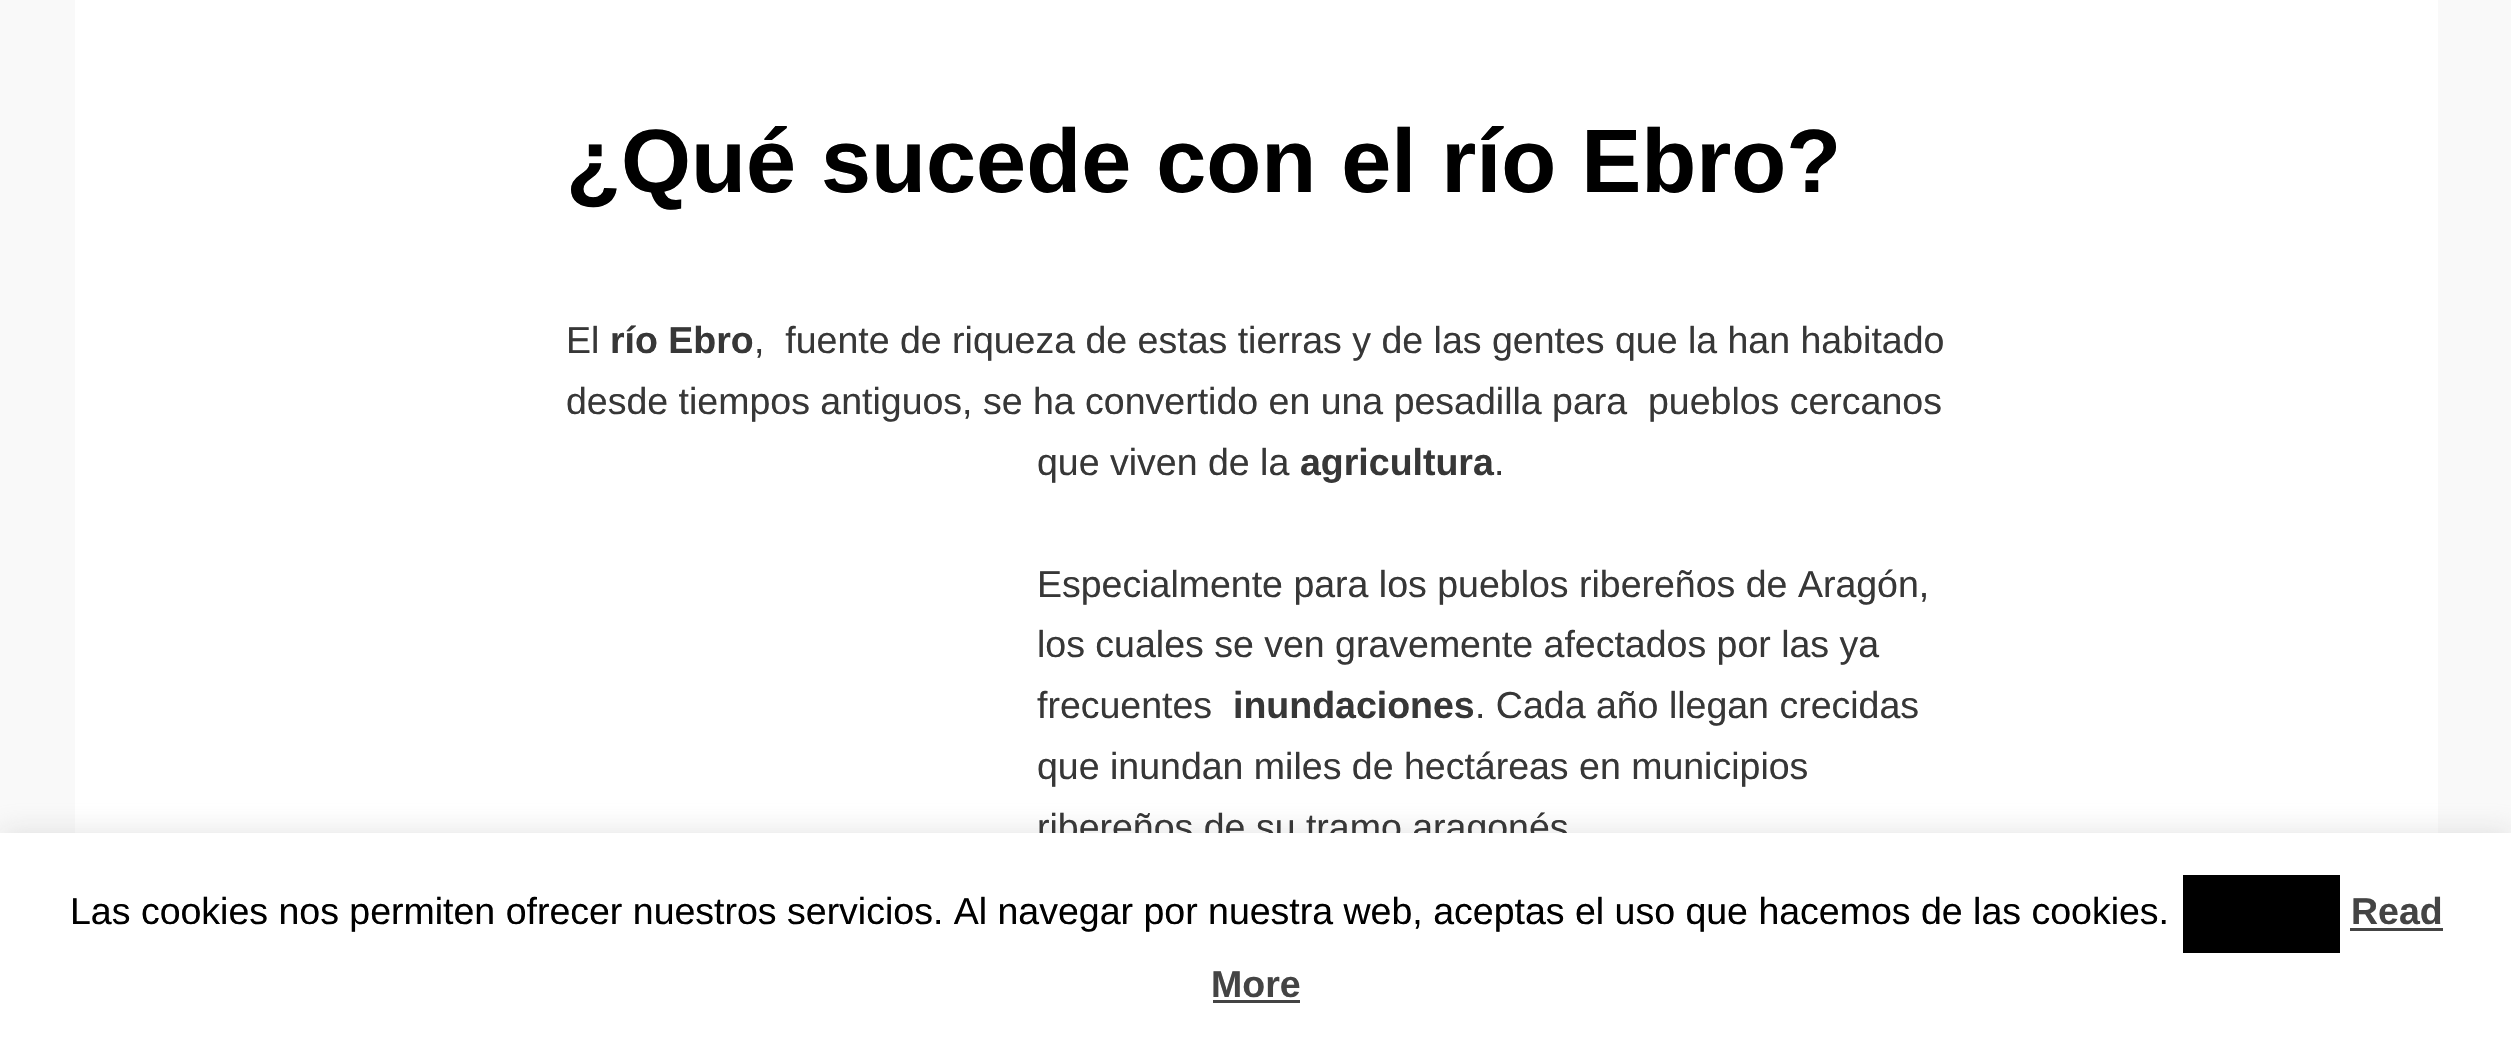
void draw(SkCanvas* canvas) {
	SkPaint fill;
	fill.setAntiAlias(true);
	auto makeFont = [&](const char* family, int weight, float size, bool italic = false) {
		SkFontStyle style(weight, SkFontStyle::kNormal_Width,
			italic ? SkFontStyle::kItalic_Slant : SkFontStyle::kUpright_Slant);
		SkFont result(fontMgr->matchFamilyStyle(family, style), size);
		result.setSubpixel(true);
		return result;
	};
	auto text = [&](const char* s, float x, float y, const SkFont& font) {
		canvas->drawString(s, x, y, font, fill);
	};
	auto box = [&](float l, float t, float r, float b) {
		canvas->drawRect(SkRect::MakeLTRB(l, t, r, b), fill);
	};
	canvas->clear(0xFFF9F9F9);
	fill.setColor(0xFFFFFFFF);
	box(75, 0, 2438, 833);
	fill.setColor(0x4DACABAB);
	fill.setMaskFilter(SkMaskFilter::MakeBlur(kNormal_SkBlurStyle, 12.5f));
	canvas->drawRect(SkRect::MakeLTRB(0, 830, 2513, 1043), fill);
	fill.setMaskFilter(nullptr);
	auto font1 = makeFont("Liberation Sans", 700, 90);
	fill.setColor(0xFF000000);
	text("¿Qué sucede con el río Ebro?", 566, 192, font1);
	auto font2 = makeFont("Liberation Sans", 400, 37.5f);
	fill.setColor(0xFF373737);
	text("El", 566, 353, font2);
	auto font3 = makeFont("Liberation Sans", 700, 37.5f);
	text("río Ebro", 610, 353, font3);
	text(",  fuente de riqueza de estas tierras y de las gentes que la han habitado", 754, 353, font2);
	text("desde tiempos antiguos, se ha convertido en una pesadilla para  pueblos cercanos", 566, 414, font2);
	text("que viven de la", 1037, 475, font2);
	text("agricultura", 1300, 475, font3);
	text(".", 1494, 475, font2);
	text("Especialmente para los pueblos ribereños de Aragón,", 1037, 597, font2);
	text("los cuales se ven gravemente afectados por las ya", 1037, 657, font2);
	text("frecuentes", 1037, 718, font2);
	text("inundaciones", 1233, 718, font3);
	text(". Cada año llegan crecidas", 1475, 718, font2);
	text("que inundan miles de hectáreas en municipios", 1037, 779, font2);
	text("ribereños de su tramo aragonés", 1037, 840, font2);
	fill.setColor(0xFFFFFFFF);
	box(0, 833, 2511, 1044);
	fill.setColor(0xFF000000);
	text("Las cookies nos permiten ofrecer nuestros servicios. Al navegar por nuestra web, aceptas el uso que hacemos de las cookies.", 70, 924, font2);
	box(2183, 875, 2340, 953);
	fill.setColor(0xFF444444);
	text("Read", 2351, 924, font3);
	box(2350, 928, 2443, 931);
	text("More", 1211, 997, font3);
	box(1213, 1000, 1300, 1003);
}
